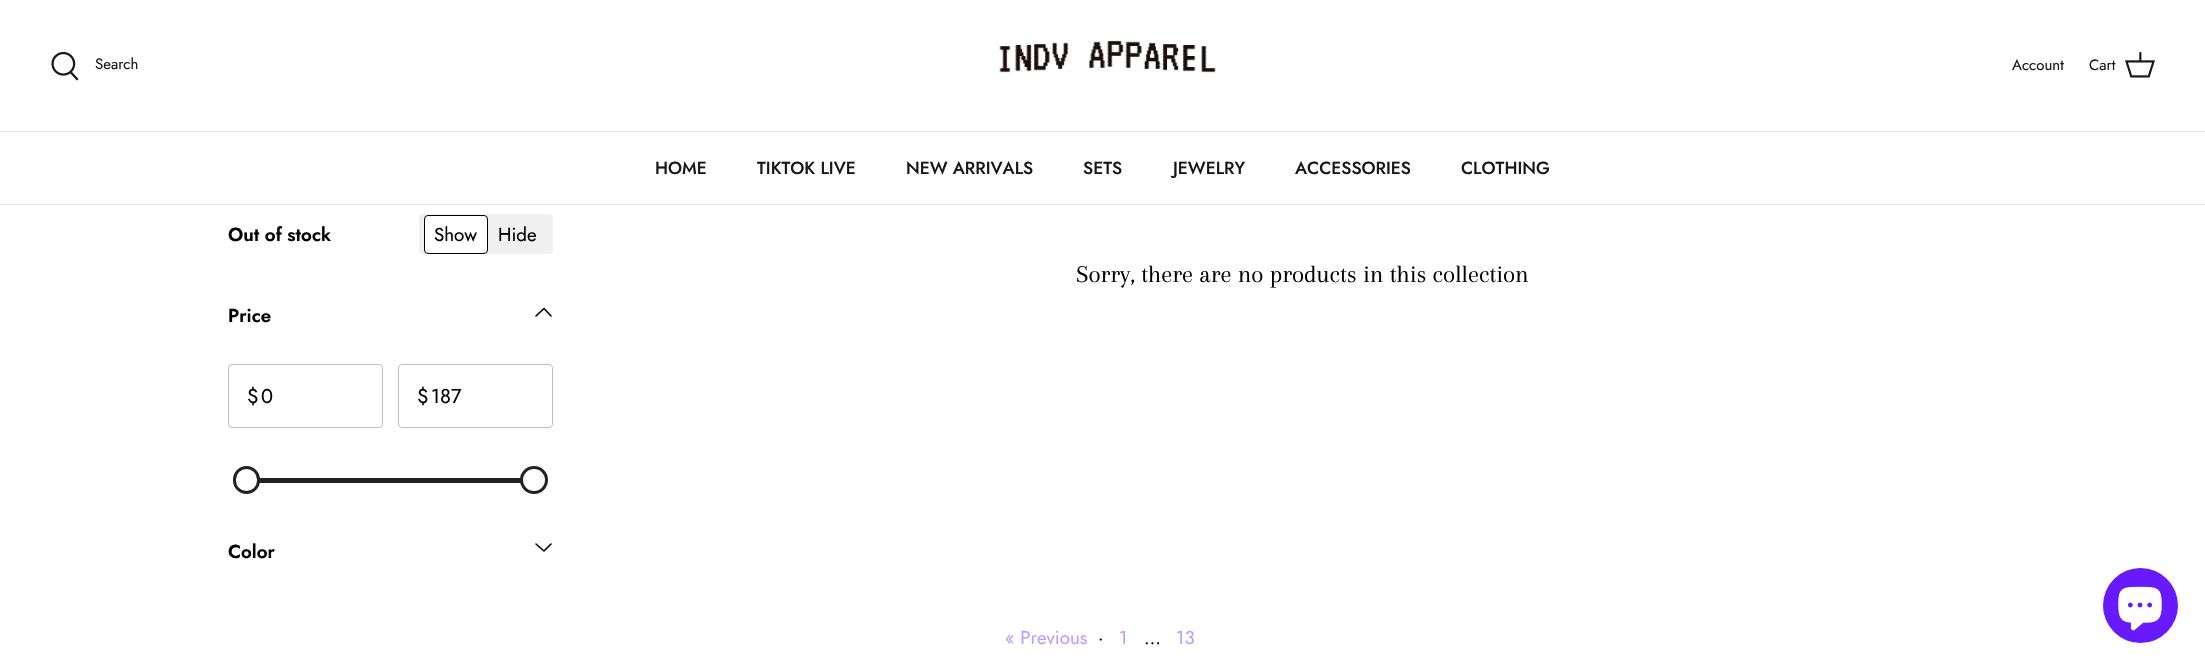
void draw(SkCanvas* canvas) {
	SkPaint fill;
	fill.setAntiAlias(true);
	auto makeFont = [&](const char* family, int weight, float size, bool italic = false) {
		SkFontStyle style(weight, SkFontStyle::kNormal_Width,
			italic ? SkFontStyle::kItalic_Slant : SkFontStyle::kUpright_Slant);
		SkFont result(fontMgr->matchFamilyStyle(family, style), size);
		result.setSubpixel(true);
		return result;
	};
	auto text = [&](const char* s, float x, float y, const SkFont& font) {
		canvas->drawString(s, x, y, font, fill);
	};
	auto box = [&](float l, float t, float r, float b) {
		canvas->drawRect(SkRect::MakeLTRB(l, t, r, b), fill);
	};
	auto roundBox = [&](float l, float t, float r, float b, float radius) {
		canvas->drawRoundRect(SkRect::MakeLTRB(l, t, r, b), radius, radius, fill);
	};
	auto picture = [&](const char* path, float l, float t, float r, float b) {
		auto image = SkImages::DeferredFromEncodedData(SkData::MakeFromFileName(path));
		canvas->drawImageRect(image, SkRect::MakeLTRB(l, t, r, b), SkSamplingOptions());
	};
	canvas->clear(0xFFFFFFFF);
	fill.setColor(0xFFDFE3E8);
	box(0, 131, 2205, 132);
	picture("image0.png", 51, 51, 79, 81);
	picture("image1.png", 999, 40, 1216, 73);
	picture("image2.png", 2125, 52, 2155, 78);
	box(0, 204, 2205, 205);
	fill.setColor(0xFFF0F0F0);
	roundBox(419, 214, 553, 254, 4);
	fill.setColor(0xFFFFFFFF);
	canvas->drawRoundRect(SkRect::MakeLTRB(424.5f, 215.5f, 487.5f, 253.5f), 3.5f, 3.5f, fill);
	fill.setStyle(SkPaint::kStroke_Style);
	fill.setStrokeWidth(1);
	fill.setColor(0xFF000000);
	canvas->drawRoundRect(SkRect::MakeLTRB(424.5f, 215.5f, 487.5f, 253.5f), 3.5f, 3.5f, fill);
	fill.setStrokeWidth(1.6f);
	fill.setStrokeCap(SkPaint::kRound_Cap);
	fill.setStrokeJoin(SkPaint::kRound_Join);
	canvas->drawPath(SkPathBuilder().moveTo(551, 316).lineTo(544, 308.5f).lineTo(536, 316).detach(), fill);
	fill.setStrokeWidth(1);
	fill.setStrokeCap(SkPaint::kButt_Cap);
	fill.setStrokeJoin(SkPaint::kMiter_Join);
	fill.setColor(0xFFBFBFBF);
	canvas->drawRoundRect(SkRect::MakeLTRB(228.5f, 364.5f, 382.5f, 427.5f), 3.5f, 3.5f, fill);
	canvas->drawRoundRect(SkRect::MakeLTRB(398.5f, 364.5f, 552.5f, 427.5f), 3.5f, 3.5f, fill);
	fill.setStyle(SkPaint::kFill_Style);
	fill.setColor(0xFF222222);
	box(259, 478, 521, 483);
	fill.setColor(0xFFFFFFFF);
	canvas->drawRoundRect(SkRect::MakeLTRB(234.5f, 467.5f, 258.5f, 492.5f), 12, 12, fill);
	fill.setStyle(SkPaint::kStroke_Style);
	fill.setStrokeWidth(3);
	fill.setColor(0xFF222222);
	canvas->drawRoundRect(SkRect::MakeLTRB(234.5f, 467.5f, 258.5f, 492.5f), 12, 12, fill);
	fill.setStyle(SkPaint::kFill_Style);
	fill.setColor(0xFFFFFFFF);
	canvas->drawCircle(534, 480, 12.5f, fill);
	fill.setStyle(SkPaint::kStroke_Style);
	fill.setColor(0xFF222222);
	canvas->drawCircle(534, 480, 12.5f, fill);
	fill.setStrokeWidth(1.6f);
	fill.setStrokeCap(SkPaint::kRound_Cap);
	fill.setStrokeJoin(SkPaint::kRound_Join);
	fill.setColor(0xFF000000);
	canvas->drawPath(SkPathBuilder().moveTo(536, 544).lineTo(544, 551).lineTo(551, 544).detach(), fill);
	fill.setStyle(SkPaint::kFill_Style);
	fill.setColor(0xFF681AFF);
	canvas->drawCircle(2140.5f, 605.5f, 37.5f, fill);
	picture("image3.png", 2118, 586, 2162, 631);
	auto font1 = makeFont("Jost", 400, 15);
	fill.setColor(0xFF171717);
	text("Search", 95, 69, font1);
	text("Account", 2012, 70, font1);
	text("Cart", 2089, 70, font1);
	auto font2 = makeFont("Jost", 500, 17.5f);
	text("HOME", 655, 174, font2);
	text("TIKTOK LIVE", 757, 174, font2);
	text("NEW ARRIVALS", 906, 174, font2);
	text("SETS", 1083, 174, font2);
	text("JEWELRY", 1173, 174, font2);
	text("ACCESSORIES", 1295, 174, font2);
	text("CLOTHING", 1461, 174, font2);
	auto font3 = makeFont("Jost", 600, 18.75f);
	fill.setColor(0xFF000000);
	text("Out of stock", 228, 241, font3);
	auto font4 = makeFont("Jost", 400, 18.75f);
	text("Show", 434, 241, font4);
	text("Hide", 498, 241, font4);
	text("Price", 228, 322, font3);
	auto font5 = makeFont("Jost", 400, 20);
	text("$", 247, 403, font5);
	text("0", 261, 403, font5);
	text("$", 417, 403, font5);
	text("187", 431, 403, font5);
	text("Color", 228, 558, font3);
	auto font6 = makeFont("Arapey", 400, 25);
	text("Sorry, there are no products in this collection", 1076, 282, font6);
	fill.setColor(0xFFBA9FFF);
	text("« Previous", 1005, 644, font4);
	fill.setColor(0xFF000000);
	text("·", 1098, 644, font4);
	fill.setColor(0xFFBA9FFF);
	text("1", 1119, 644, font4);
	text("13", 1176, 644, font4);
	fill.setColor(0xFF000000);
	text("…", 1144, 644, font4);
}
